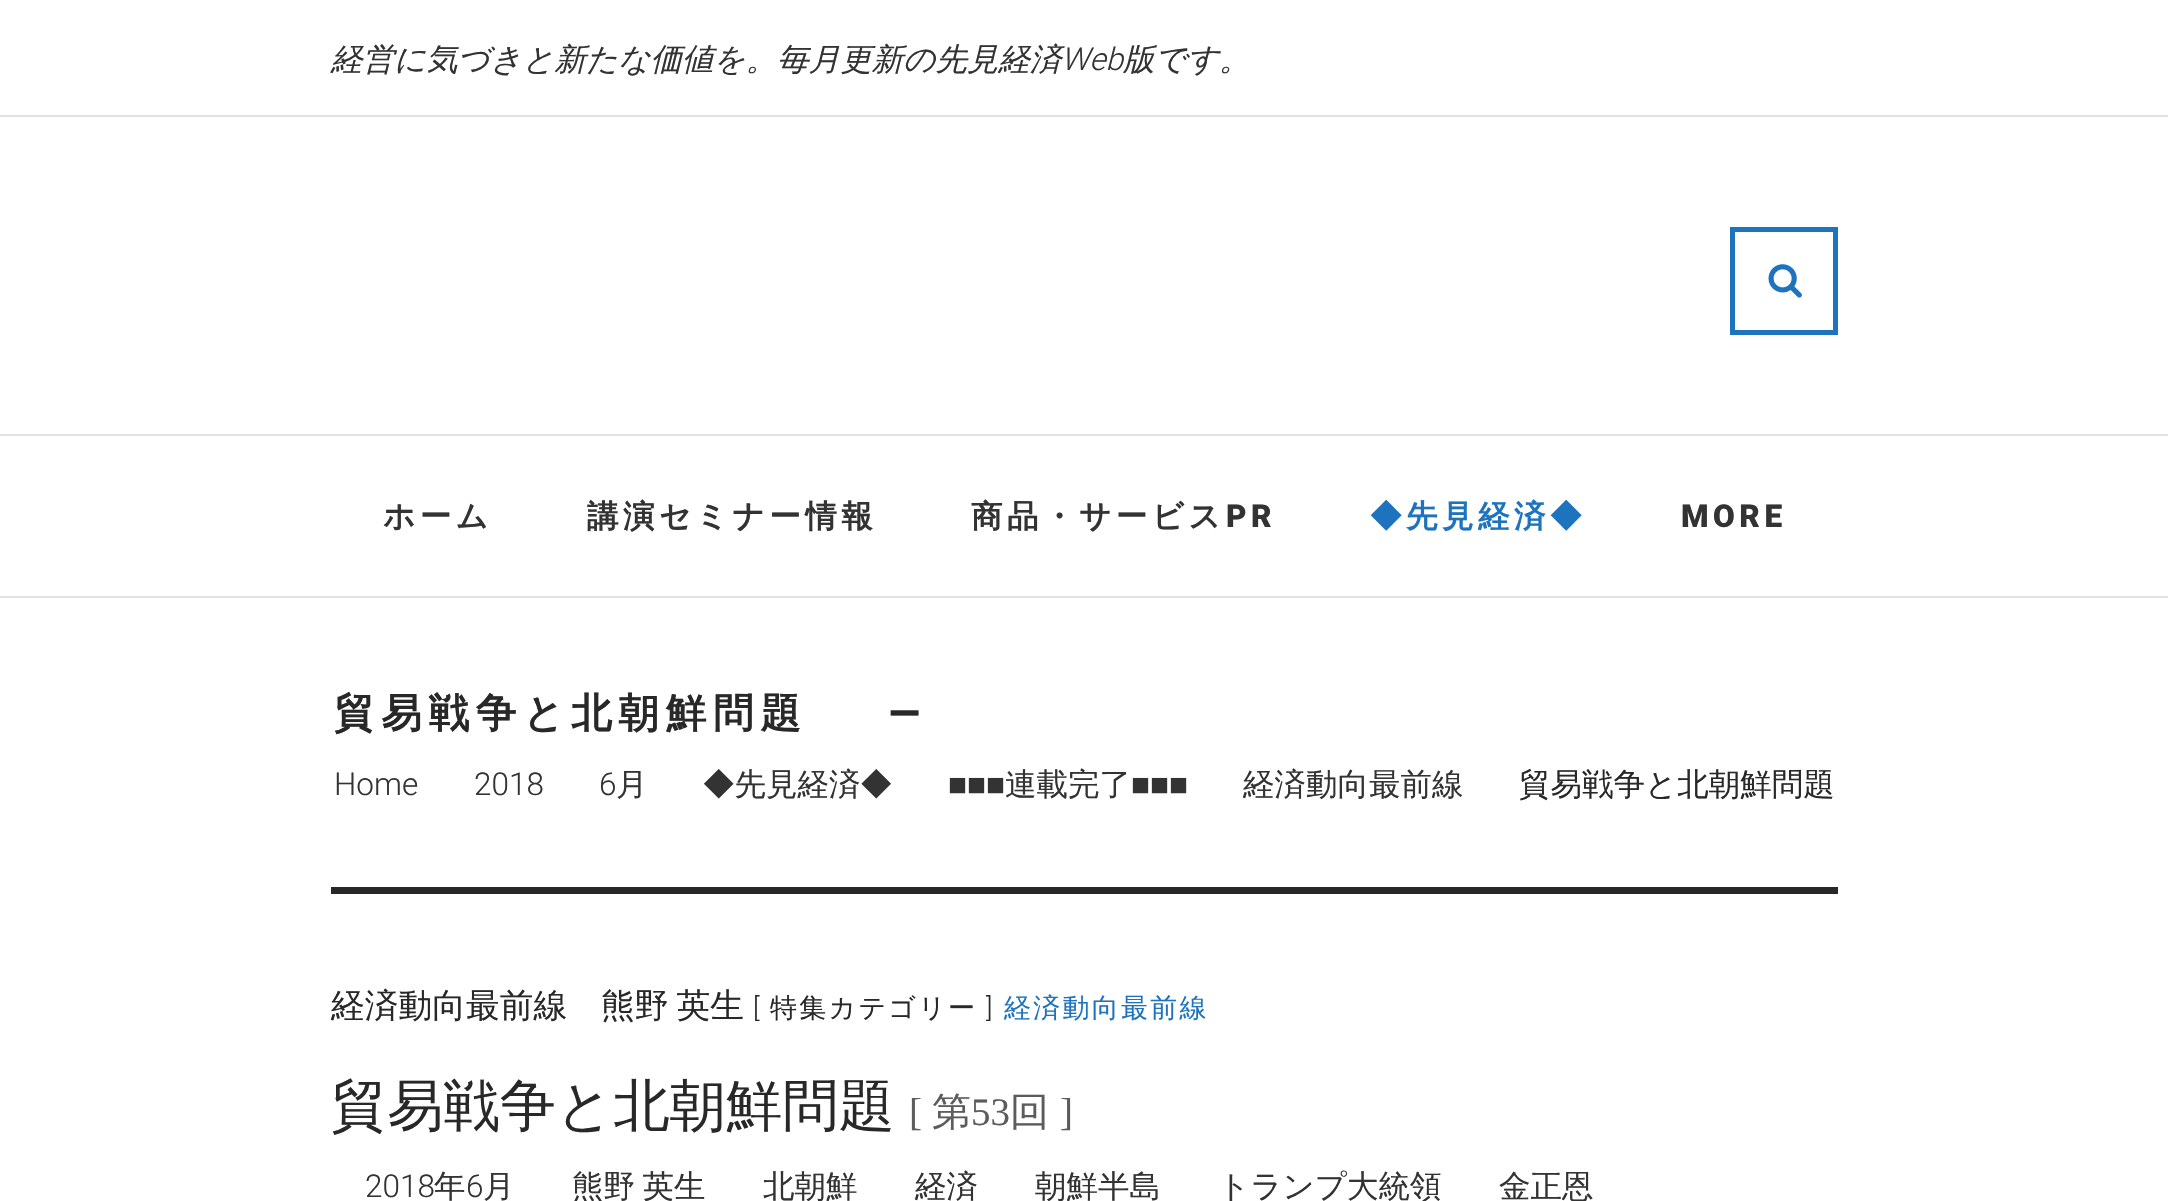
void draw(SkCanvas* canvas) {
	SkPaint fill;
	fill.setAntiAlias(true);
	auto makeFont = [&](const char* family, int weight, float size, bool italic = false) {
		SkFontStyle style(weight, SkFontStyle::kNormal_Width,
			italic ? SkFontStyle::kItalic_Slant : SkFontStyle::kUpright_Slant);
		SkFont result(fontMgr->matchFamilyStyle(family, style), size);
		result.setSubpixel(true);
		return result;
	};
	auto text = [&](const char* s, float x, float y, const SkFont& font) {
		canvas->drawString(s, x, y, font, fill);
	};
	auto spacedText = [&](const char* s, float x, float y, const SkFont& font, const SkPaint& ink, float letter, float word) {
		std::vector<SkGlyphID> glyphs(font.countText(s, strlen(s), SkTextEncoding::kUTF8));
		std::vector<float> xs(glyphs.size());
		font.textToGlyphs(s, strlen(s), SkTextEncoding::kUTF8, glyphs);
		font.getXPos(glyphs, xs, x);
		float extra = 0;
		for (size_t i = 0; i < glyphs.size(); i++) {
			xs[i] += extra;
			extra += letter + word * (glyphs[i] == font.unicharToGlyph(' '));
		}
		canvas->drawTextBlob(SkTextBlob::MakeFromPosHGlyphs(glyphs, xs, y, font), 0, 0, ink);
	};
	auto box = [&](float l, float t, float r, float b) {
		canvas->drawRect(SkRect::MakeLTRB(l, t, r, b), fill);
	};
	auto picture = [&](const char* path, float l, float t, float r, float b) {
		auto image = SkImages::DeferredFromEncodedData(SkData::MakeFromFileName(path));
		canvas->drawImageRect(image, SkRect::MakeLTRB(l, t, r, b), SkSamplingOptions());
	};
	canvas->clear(0xFFFFFFFF);
	fill.setColor(0xFFE1E1E1);
	box(0, 115, 2168, 117);
	fill.setStyle(SkPaint::kStroke_Style);
	fill.setStrokeWidth(5);
	fill.setColor(0xFF1E73BE);
	canvas->drawRect(SkRect::MakeLTRB(1732.5f, 229.5f, 1835.5f, 332.5f), fill);
	picture("image0.png", 1768, 264, 1802, 298);
	fill.setStyle(SkPaint::kFill_Style);
	fill.setColor(0xFFE1E1E1);
	box(0, 434, 2168, 436);
	box(0, 596, 2168, 598);
	fill.setColor(0xFF282828);
	box(331, 887, 1838, 894);
	auto font1 = makeFont("WenQuanYi Zen Hei", 500, 31.5f, true);
	fill.setColor(0xFF333333);
	text("経営に気づきと新たな価値を。毎月更新の先見経済", 331, 70, font1);
	auto font2 = makeFont("Roboto", 300, 31.5f, true);
	text("Web", 1061, 70, font2);
	text("版です。", 1123, 70, font1);
	auto font3 = makeFont("WenQuanYi Zen Hei", 700, 31.5f);
	spacedText("ホーム", 383, 527, font3, fill, 4.5f, 0);
	spacedText("講演セミナー情報", 587, 527, font3, fill, 4.5f, 0);
	spacedText("商品・サービス", 971, 527, font3, fill, 4.5f, 0);
	auto font4 = makeFont("Roboto", 900, 31.5f);
	spacedText("PR", 1226, 527, font4, fill, 4.5f, 0);
	fill.setColor(0xFF1E73BE);
	spacedText("◆先見経済◆", 1370, 527, font3, fill, 4.5f, 0);
	fill.setColor(0xFF333333);
	spacedText("MORE", 1681, 527, font4, fill, 4.5f, 0);
	auto font5 = makeFont("WenQuanYi Zen Hei", 700, 40.5f);
	fill.setColor(0xFF282828);
	spacedText("貿易戦争と北朝鮮問題", 334, 727, font5, fill, 6.75f, 0);
	auto font6 = makeFont("Roboto", 900, 40.5f);
	spacedText("—", 889, 727, font6, fill, 6.75f, 0);
	auto font7 = makeFont("Roboto", 300, 31.5f);
	fill.setColor(0xFF333333);
	text("Home", 334, 795, font7);
	text("2018", 474, 795, font7);
	text("6", 599, 795, font7);
	auto font8 = makeFont("WenQuanYi Zen Hei", 500, 31.5f);
	text("月", 616, 795, font8);
	text("◆先見経済◆", 703, 795, font8);
	auto font9 = makeFont("Liberation Sans", 400, 31.5f);
	text("■■■", 948, 795, font9);
	text("連載完了", 1005, 795, font8);
	text("■■■", 1131, 795, font9);
	text("経済動向最前線", 1243, 795, font8);
	fill.setColor(0xFF282828);
	text("貿易戦争と北朝鮮問題", 1519, 795, font8);
	auto font10 = makeFont("WenQuanYi Zen Hei", 500, 33.75f);
	spacedText("経済動向最前線　熊野 英生", 331, 1017, font10, fill, 0, -2);
	auto font11 = makeFont("Roboto", 300, 27);
	spacedText("[", 753, 1017, font11, fill, 2.25f, 0);
	auto font12 = makeFont("WenQuanYi Zen Hei", 500, 27);
	spacedText("特集カテゴリー", 770, 1017, font12, fill, 2.25f, 0);
	spacedText("]", 986, 1017, font11, fill, 2.25f, 0);
	fill.setColor(0xFF1E73BE);
	spacedText("経済動向最前線", 1004, 1017, font12, fill, 2.25f, 0);
	auto font13 = makeFont("WenQuanYi Zen Hei", 500, 56.25f);
	fill.setColor(0xFF282828);
	text("貿易戦争と北朝鮮問題", 331, 1125, font13);
	auto font14 = makeFont("Liberation Serif", 400, 39);
	fill.setColor(0xFF5C5C5C);
	text("[", 909, 1125, font14);
	auto font15 = makeFont("WenQuanYi Zen Hei", 500, 39);
	text("第", 932, 1125, font15);
	text("53", 971, 1125, font14);
	text("回", 1010, 1125, font15);
	text("]", 1060, 1125, font14);
	fill.setColor(0xFF333333);
	text("2018", 365, 1197, font7);
	text("年", 434, 1197, font8);
	text("6", 466, 1197, font7);
	text("月", 483, 1197, font8);
	spacedText("熊野 英生", 572, 1197, font8, fill, 0, -2);
	text("北朝鮮", 763, 1197, font8);
	text("経済", 915, 1197, font8);
	text("朝鮮半島", 1035, 1197, font8);
	text("トランプ大統領", 1218, 1197, font8);
	text("金正恩", 1499, 1197, font8);
}
